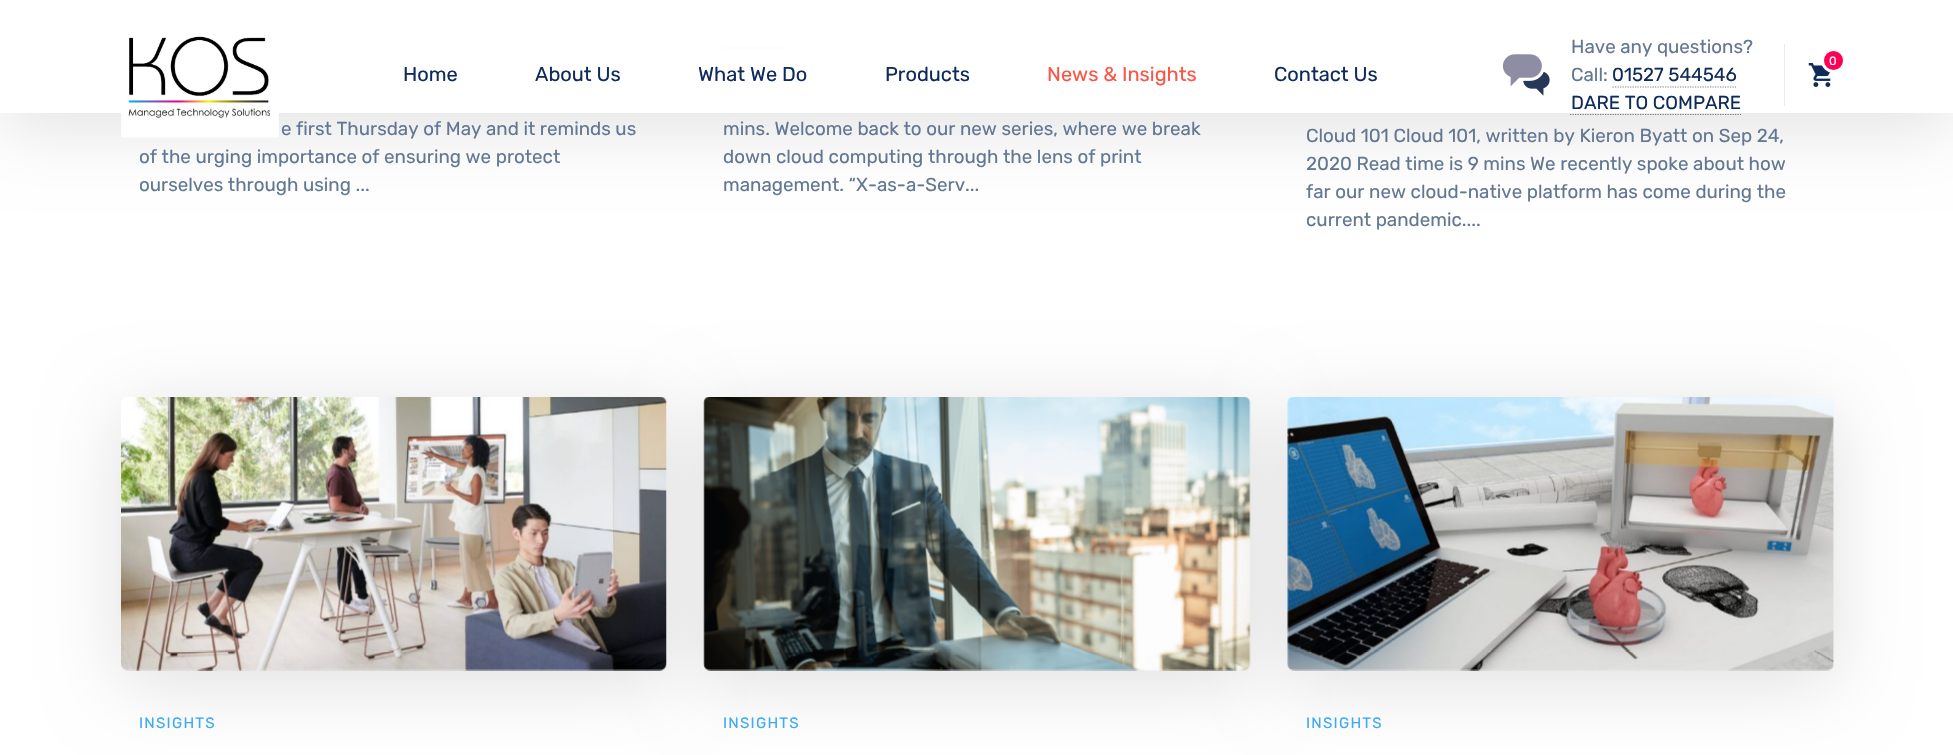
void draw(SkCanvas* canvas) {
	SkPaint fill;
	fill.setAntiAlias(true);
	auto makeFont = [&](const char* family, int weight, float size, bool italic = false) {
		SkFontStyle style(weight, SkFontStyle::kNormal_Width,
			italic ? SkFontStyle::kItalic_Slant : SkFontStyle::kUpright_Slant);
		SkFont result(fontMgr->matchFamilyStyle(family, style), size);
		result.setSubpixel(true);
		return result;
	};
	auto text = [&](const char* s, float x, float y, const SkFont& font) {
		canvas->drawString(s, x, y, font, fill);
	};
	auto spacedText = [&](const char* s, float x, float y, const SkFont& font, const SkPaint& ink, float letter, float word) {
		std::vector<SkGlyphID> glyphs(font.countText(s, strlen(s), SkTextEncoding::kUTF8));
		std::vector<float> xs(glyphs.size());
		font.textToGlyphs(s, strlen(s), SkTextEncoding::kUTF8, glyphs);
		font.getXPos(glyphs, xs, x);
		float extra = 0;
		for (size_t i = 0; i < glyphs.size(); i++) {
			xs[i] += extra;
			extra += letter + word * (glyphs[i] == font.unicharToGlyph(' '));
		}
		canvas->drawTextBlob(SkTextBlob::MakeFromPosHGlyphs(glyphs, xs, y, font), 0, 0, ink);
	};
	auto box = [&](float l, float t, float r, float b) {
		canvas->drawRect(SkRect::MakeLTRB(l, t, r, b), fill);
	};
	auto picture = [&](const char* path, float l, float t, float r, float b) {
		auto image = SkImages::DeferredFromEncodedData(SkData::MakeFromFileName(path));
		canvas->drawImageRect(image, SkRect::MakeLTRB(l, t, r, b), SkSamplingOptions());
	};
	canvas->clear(0xFFFFFFFF);
	fill.setColor(0xFFB7BFCE);
	box(723, 46, 785, 50);
	box(1306, 80, 1369, 84);
	canvas->save();
	canvas->clipPath(SkPathBuilder(SkPathFillType::kEvenOdd).moveTo(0, 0).lineTo(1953, 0).lineTo(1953, 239).lineTo(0, 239).close().moveTo(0, 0).lineTo(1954, 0).lineTo(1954, 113).lineTo(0, 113).close().detach(), true);
	fill.setColor(0x1F000000);
	fill.setMaskFilter(SkMaskFilter::MakeBlur(kNormal_SkBlurStyle, 37.5f));
	canvas->drawRect(SkRect::MakeLTRB(0, 13, 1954, 125), fill);
	fill.setMaskFilter(nullptr);
	canvas->restore();
	fill.setColor(0xF7FFFFFF);
	box(0, 46, 1953, 113);
	picture("image0.png", 121, 13, 279, 138);
	picture("image1.png", 1502, 54, 1550, 96);
	fill.setStyle(SkPaint::kStroke_Style);
	fill.setStrokeWidth(1.2f);
	fill.setColor(0xFF7F7F7F);
	fill.setPathEffect(SkDashPathEffect::Make({{1.25f, 1.25f}}, 0));
	canvas->drawPath(SkPathBuilder().moveTo(1612.5f, 87).lineTo(1736, 87).detach(), fill);
	fill.setPathEffect(nullptr);
	fill.setColor(0xFF767676);
	fill.setPathEffect(SkDashPathEffect::Make({{1.25f, 1.25f}}, 0));
	canvas->drawPath(SkPathBuilder().moveTo(1570, 114.5f).lineTo(1741, 114.5f).detach(), fill);
	fill.setPathEffect(nullptr);
	fill.setStyle(SkPaint::kFill_Style);
	fill.setColor(0xFFE7EBEF);
	box(1784, 44, 1785, 106);
	picture("image2.png", 1808, 63, 1831, 87);
	fill.setColor(0xFFFF0055);
	canvas->drawCircle(1833.5f, 60.5f, 11, fill);
	fill.setStyle(SkPaint::kStroke_Style);
	fill.setStrokeWidth(3);
	fill.setColor(0xFFFFFFFF);
	canvas->drawCircle(1833.5f, 60.5f, 11, fill);
	fill.setStyle(SkPaint::kFill_Style);
	fill.setColor(0x1F000000);
	fill.setMaskFilter(SkMaskFilter::MakeBlur(kNormal_SkBlurStyle, 37.5f));
	canvas->drawRoundRect(SkRect::MakeLTRB(121, 409, 666, 683), 6, 6, fill);
	fill.setMaskFilter(nullptr);
	picture("image3.png", 121, 397, 667, 671);
	fill.setMaskFilter(SkMaskFilter::MakeBlur(kNormal_SkBlurStyle, 37.5f));
	canvas->drawRoundRect(SkRect::MakeLTRB(704, 409, 1250, 683), 6, 6, fill);
	fill.setMaskFilter(nullptr);
	picture("image4.png", 703, 397, 1251, 671);
	fill.setMaskFilter(SkMaskFilter::MakeBlur(kNormal_SkBlurStyle, 37.5f));
	canvas->drawRoundRect(SkRect::MakeLTRB(1288, 409, 1834, 683), 6, 6, fill);
	fill.setMaskFilter(nullptr);
	picture("image5.png", 1287, 397, 1834, 671);
	auto font1 = makeFont("Rubik", 400, 20);
	fill.setColor(0xFF0E2B5C);
	text("Home", 403, 81, font1);
	text("About Us", 535, 81, font1);
	text("What We Do", 698, 81, font1);
	text("Products", 885, 81, font1);
	fill.setColor(0xFFFC5546);
	text("News & Insights", 1047, 81, font1);
	fill.setColor(0xFF0E2B5C);
	text("Contact Us", 1274, 81, font1);
	auto font2 = makeFont("Rubik", 400, 18.75f);
	fill.setColor(0xFF627792);
	text("Have any questions?", 1571, 53, font2);
	text("Call:", 1571, 81, font2);
	fill.setColor(0xFF0E2B5C);
	text("01527 544546", 1612, 81, font2);
	text("DARE TO COMPARE", 1571, 109, font2);
	auto font3 = makeFont("Rubik", 400, 12);
	fill.setColor(0xFFFFFFFF);
	text("0", 1829, 65, font3);
	fill.setColor(0xFF627792);
	text("e first Thursday of May and it reminds us", 281, 135, font2);
	text("of the urging importance of ensuring we protect", 139, 163, font2);
	text("ourselves through using ...", 139, 191, font2);
	text("mins. Welcome back to our new series, where we break", 723, 135, font2);
	text("down cloud computing through the lens of print", 723, 163, font2);
	text("management. “X-as-a-Serv...", 723, 191, font2);
	text("Cloud 101 Cloud 101, written by Kieron Byatt on Sep 24,", 1306, 142, font2);
	text("2020 Read time is 9 mins We recently spoke about how", 1306, 170, font2);
	text("far our new cloud-native platform has come during the", 1306, 198, font2);
	text("current pandemic....", 1306, 226, font2);
	auto font4 = makeFont("Rubik", 400, 15);
	fill.setColor(0xFF3EA9F5);
	spacedText("INSIGHTS", 139, 728, font4, fill, 1.25f, 0);
	spacedText("INSIGHTS", 723, 728, font4, fill, 1.25f, 0);
	spacedText("INSIGHTS", 1306, 728, font4, fill, 1.25f, 0);
}
